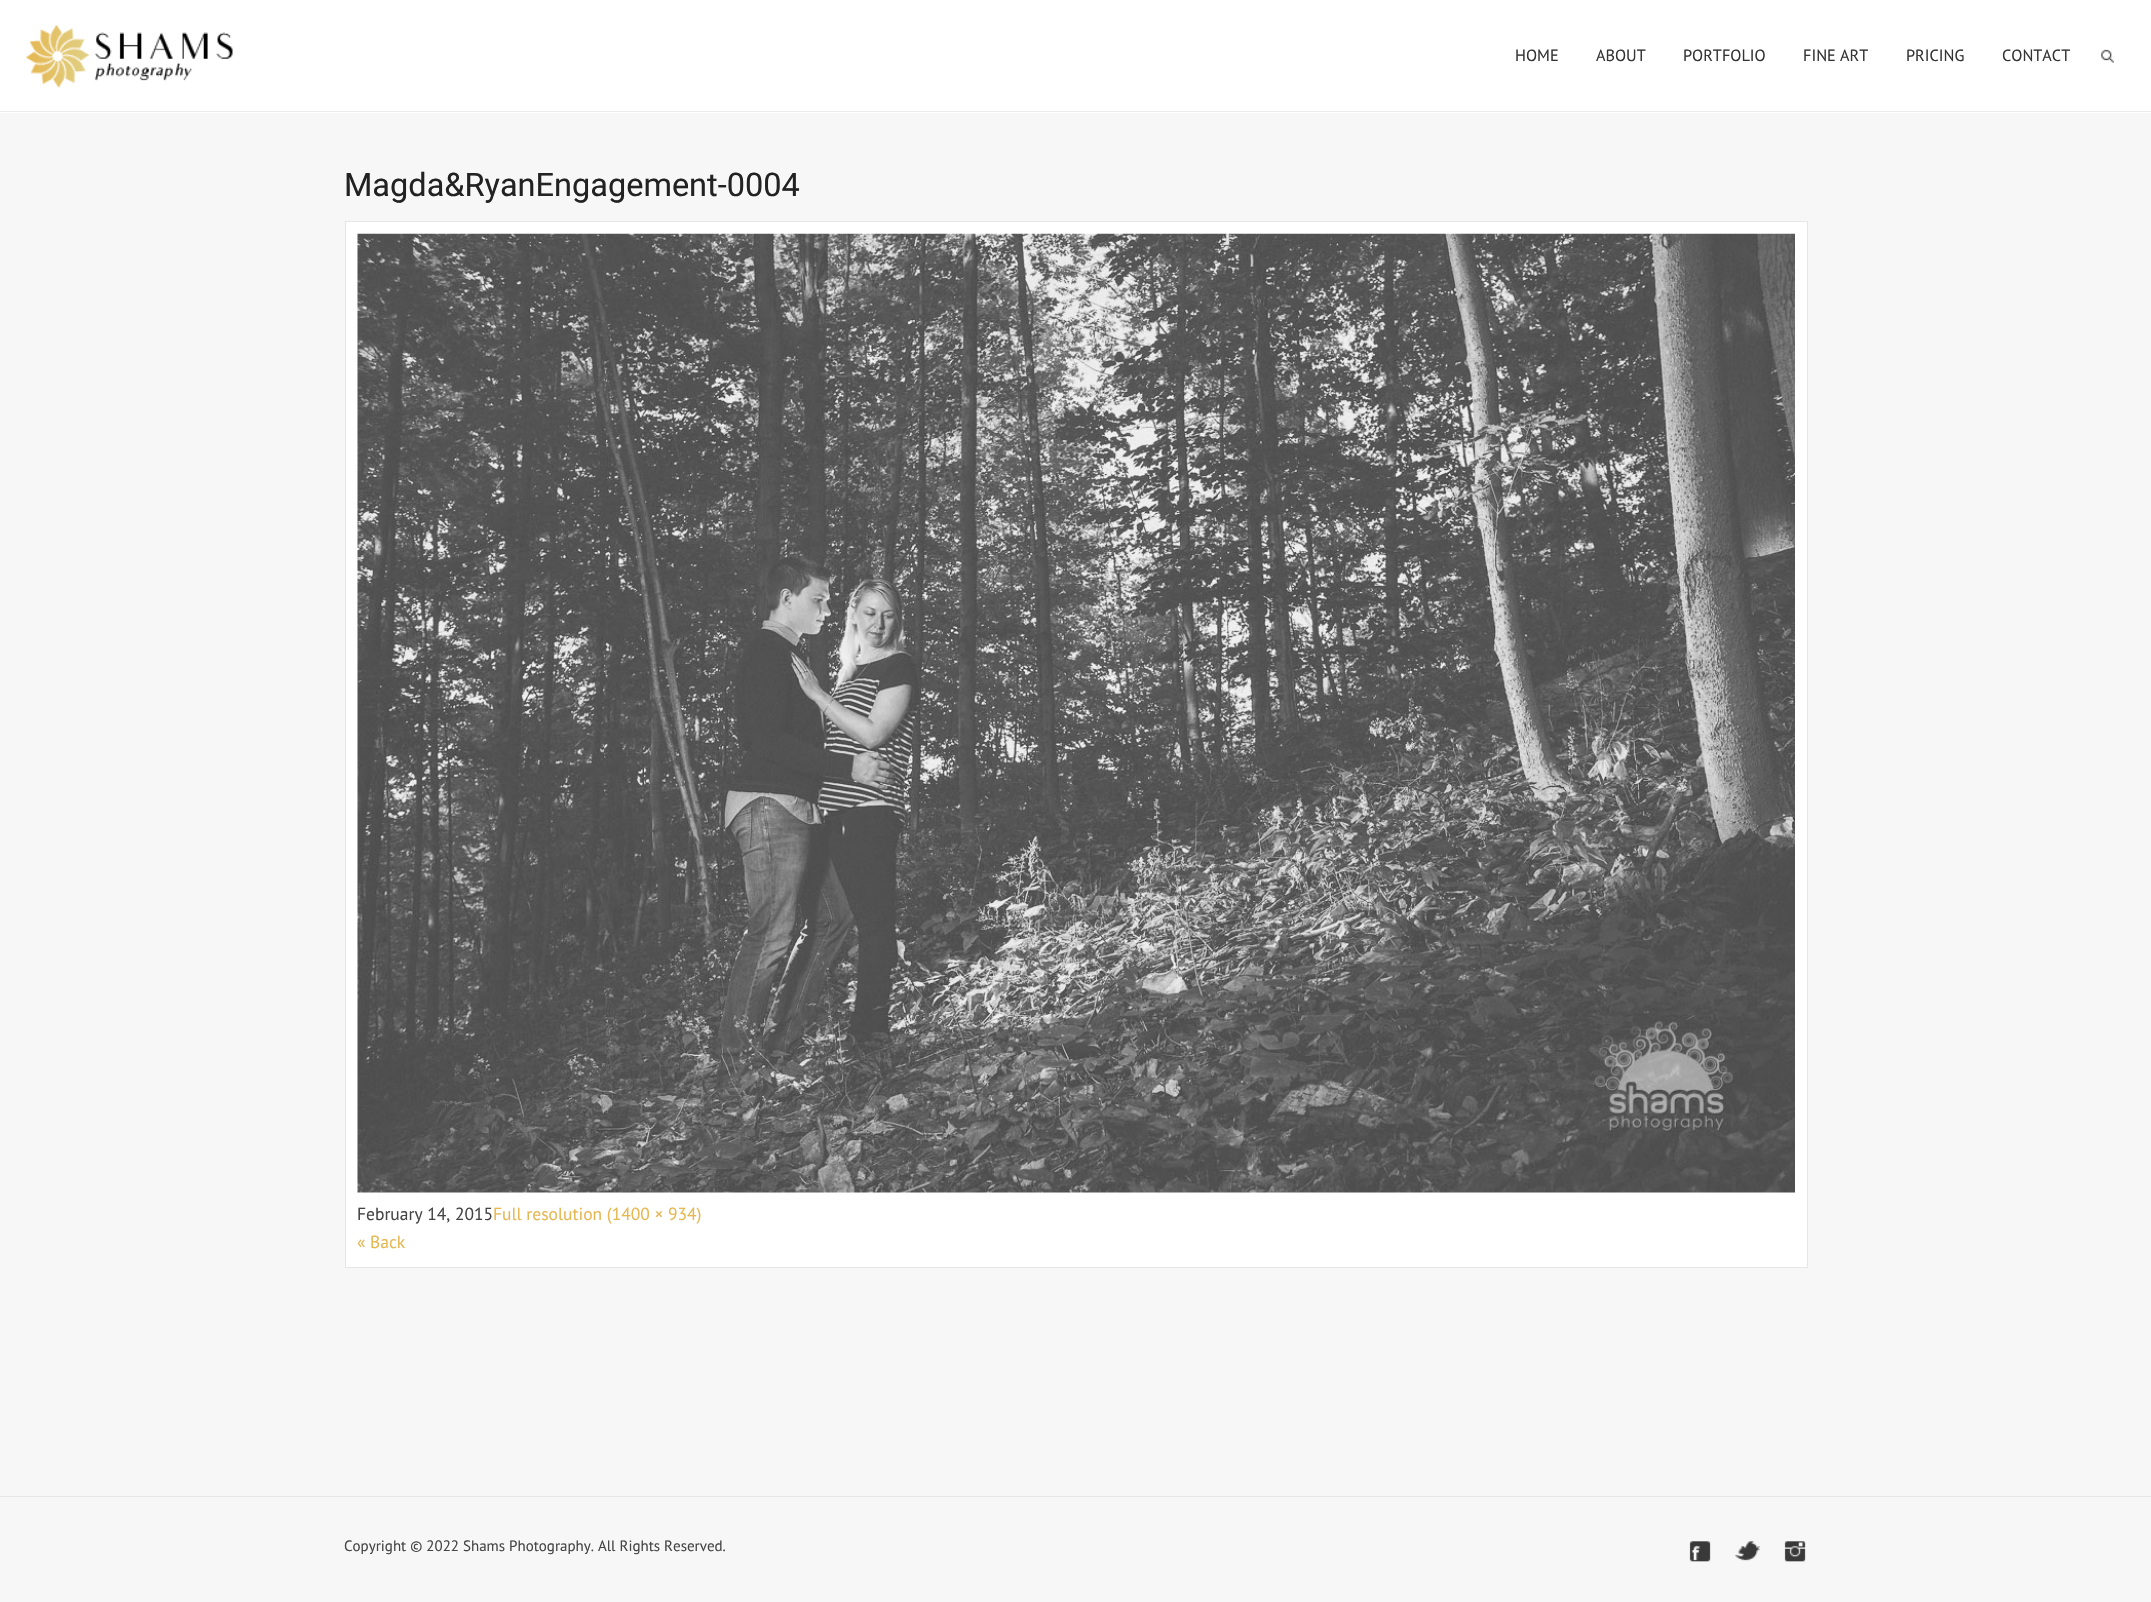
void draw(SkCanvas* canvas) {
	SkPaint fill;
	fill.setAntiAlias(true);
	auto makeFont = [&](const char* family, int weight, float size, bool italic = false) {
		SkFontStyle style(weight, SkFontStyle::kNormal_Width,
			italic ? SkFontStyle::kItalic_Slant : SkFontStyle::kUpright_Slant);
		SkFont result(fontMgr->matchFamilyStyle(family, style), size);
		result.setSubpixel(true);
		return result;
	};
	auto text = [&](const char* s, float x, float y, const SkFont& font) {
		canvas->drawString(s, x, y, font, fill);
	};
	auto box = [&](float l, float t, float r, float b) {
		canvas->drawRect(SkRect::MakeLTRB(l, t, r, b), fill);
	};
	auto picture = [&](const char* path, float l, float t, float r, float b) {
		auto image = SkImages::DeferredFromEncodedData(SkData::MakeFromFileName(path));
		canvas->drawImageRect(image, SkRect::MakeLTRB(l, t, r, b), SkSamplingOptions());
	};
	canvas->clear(0xFFF7F7F7);
	fill.setColor(0xFFFFFFFF);
	box(0, 0, 2151, 113);
	fill.setColor(0xFFECECEC);
	box(0, 111, 2151, 112);
	picture("image0.png", 26, 25, 233, 88);
	picture("image1.png", 2101, 49, 2114, 63);
	fill.setColor(0xFFFFFFFF);
	canvas->drawRect(SkRect::MakeLTRB(345.5f, 221.5f, 1807.5f, 1267.5f), fill);
	fill.setStyle(SkPaint::kStroke_Style);
	fill.setStrokeWidth(1);
	fill.setColor(0xFFE6E6E6);
	canvas->drawRect(SkRect::MakeLTRB(345.5f, 221.5f, 1807.5f, 1267.5f), fill);
	picture("image2.png", 357, 233, 1795, 1193);
	fill.setStyle(SkPaint::kFill_Style);
	box(0, 1496, 2151, 1497);
	picture("image3.png", 1689, 1541, 1711, 1562);
	picture("image4.png", 1735, 1541, 1760, 1561);
	picture("image5.png", 1784, 1541, 1806, 1562);
	auto font1 = makeFont("PT Sans", 400, 16.25f);
	fill.setColor(0xFF343434);
	text("HOME", 1515, 61, font1);
	text("ABOUT", 1596, 61, font1);
	text("PORTFOLIO", 1683, 61, font1);
	text("FINE ART", 1803, 61, font1);
	text("PRICING", 1906, 61, font1);
	text("CONTACT", 2002, 61, font1);
	auto font2 = makeFont("Roboto", 400, 32.5f);
	fill.setColor(0xFF222222);
	text("Magda&RyanEngagement-0004", 344, 196, font2);
	auto font3 = makeFont("PT Sans", 400, 17.5f);
	fill.setColor(0xFF444444);
	text("February 14, 2015", 357, 1220, font3);
	fill.setColor(0xFFE6B752);
	text("Full resolution (1400 × 934)", 493, 1220, font3);
	text("« Back", 357, 1248, font3);
	auto font4 = makeFont("PT Sans", 400, 15);
	fill.setColor(0xFF444444);
	text("Copyright © 2022 Shams Photography. All Rights Reserved.", 344, 1551, font4);
}
